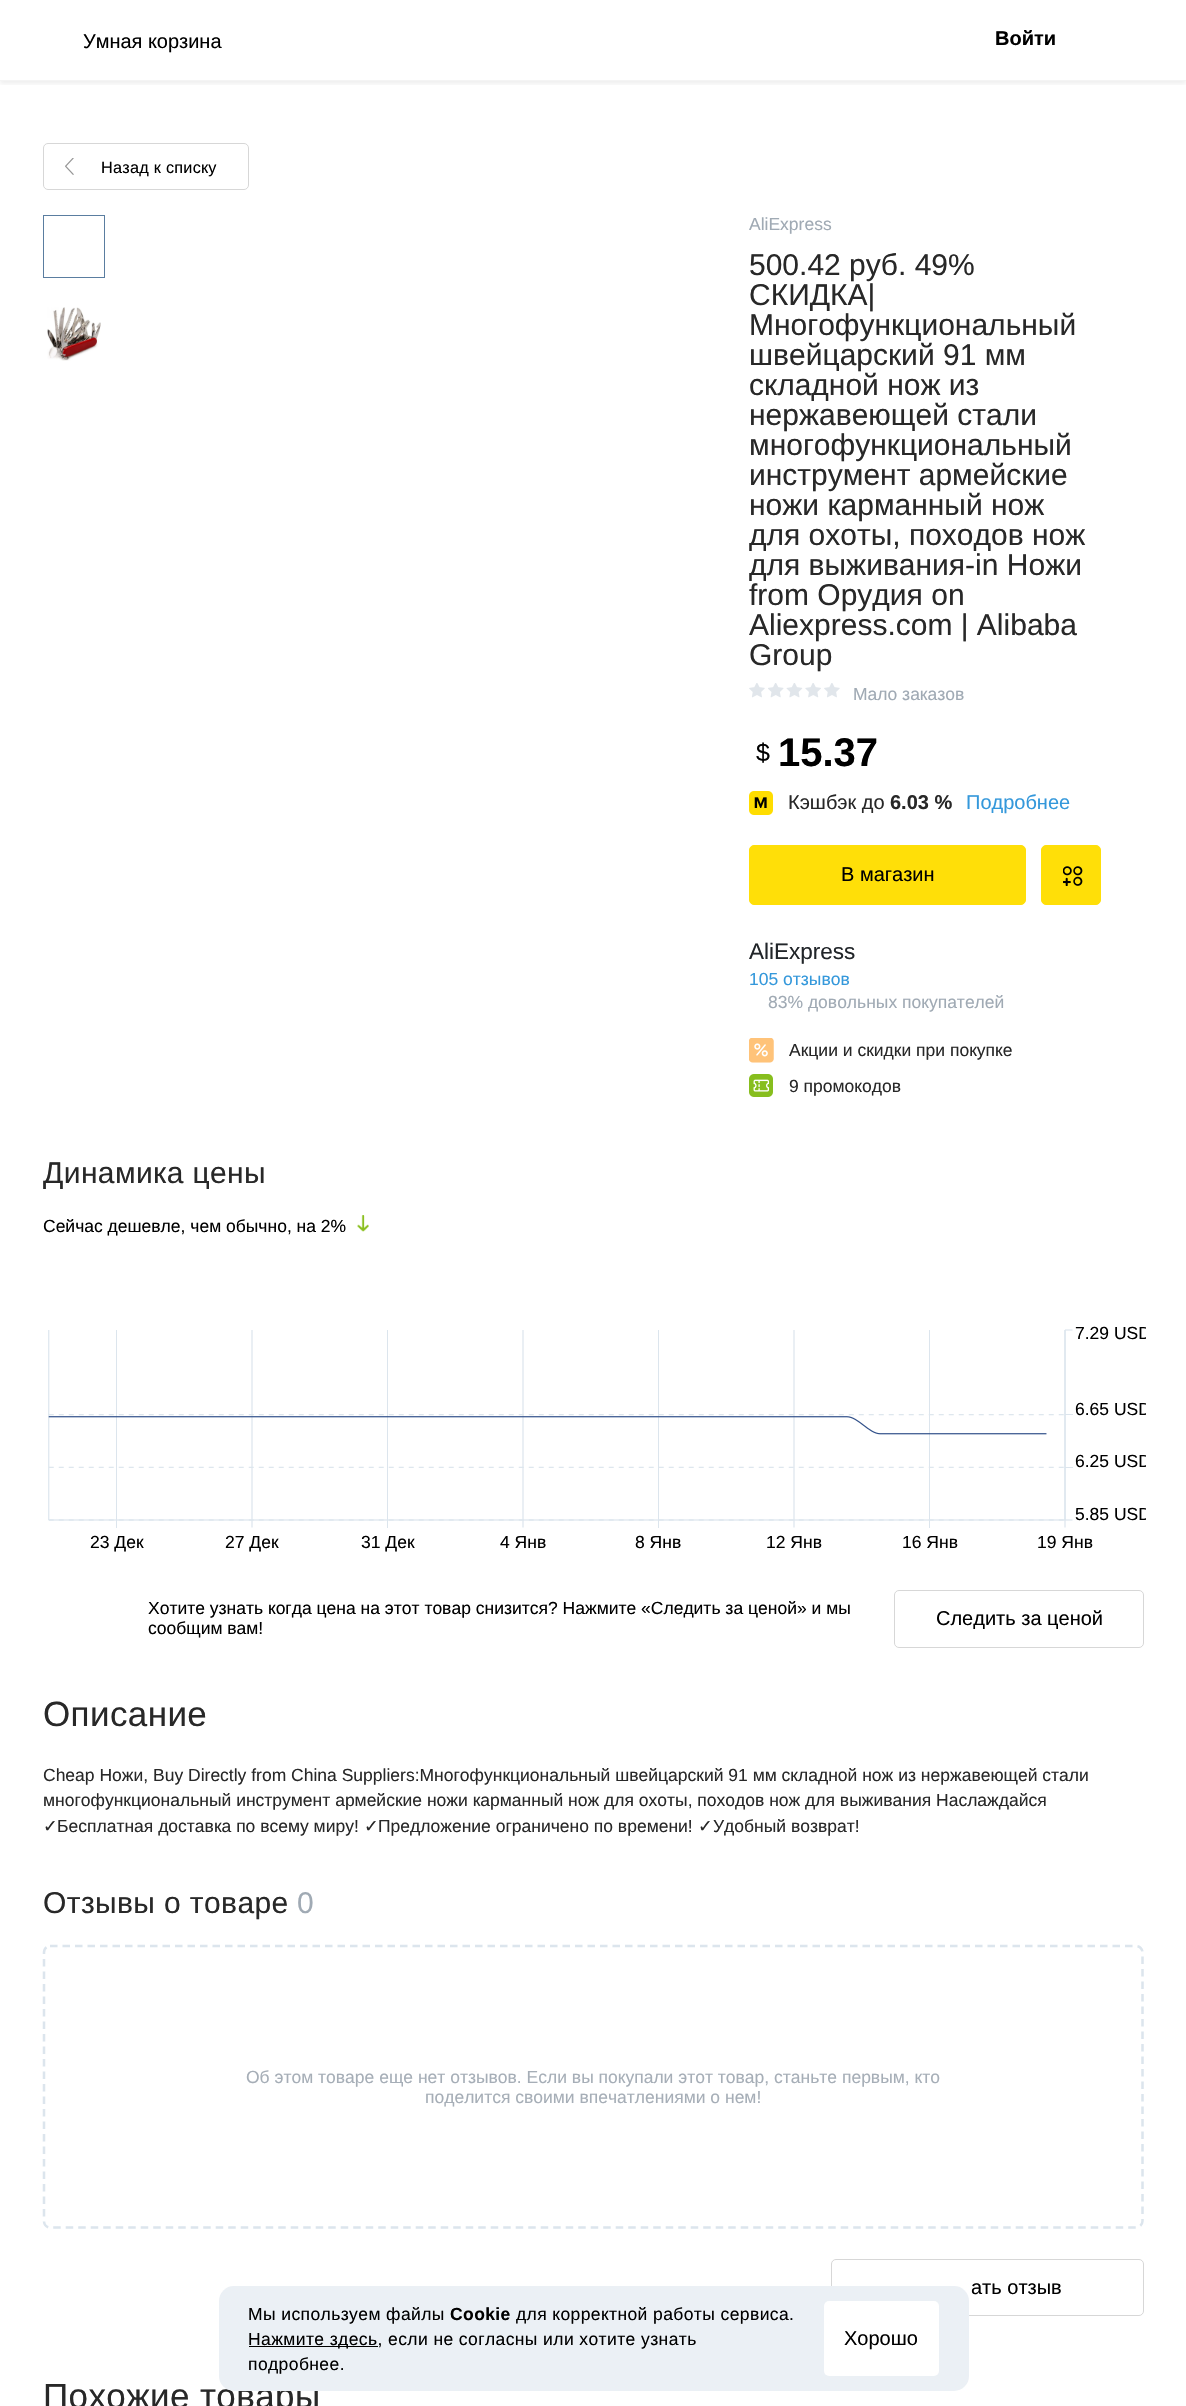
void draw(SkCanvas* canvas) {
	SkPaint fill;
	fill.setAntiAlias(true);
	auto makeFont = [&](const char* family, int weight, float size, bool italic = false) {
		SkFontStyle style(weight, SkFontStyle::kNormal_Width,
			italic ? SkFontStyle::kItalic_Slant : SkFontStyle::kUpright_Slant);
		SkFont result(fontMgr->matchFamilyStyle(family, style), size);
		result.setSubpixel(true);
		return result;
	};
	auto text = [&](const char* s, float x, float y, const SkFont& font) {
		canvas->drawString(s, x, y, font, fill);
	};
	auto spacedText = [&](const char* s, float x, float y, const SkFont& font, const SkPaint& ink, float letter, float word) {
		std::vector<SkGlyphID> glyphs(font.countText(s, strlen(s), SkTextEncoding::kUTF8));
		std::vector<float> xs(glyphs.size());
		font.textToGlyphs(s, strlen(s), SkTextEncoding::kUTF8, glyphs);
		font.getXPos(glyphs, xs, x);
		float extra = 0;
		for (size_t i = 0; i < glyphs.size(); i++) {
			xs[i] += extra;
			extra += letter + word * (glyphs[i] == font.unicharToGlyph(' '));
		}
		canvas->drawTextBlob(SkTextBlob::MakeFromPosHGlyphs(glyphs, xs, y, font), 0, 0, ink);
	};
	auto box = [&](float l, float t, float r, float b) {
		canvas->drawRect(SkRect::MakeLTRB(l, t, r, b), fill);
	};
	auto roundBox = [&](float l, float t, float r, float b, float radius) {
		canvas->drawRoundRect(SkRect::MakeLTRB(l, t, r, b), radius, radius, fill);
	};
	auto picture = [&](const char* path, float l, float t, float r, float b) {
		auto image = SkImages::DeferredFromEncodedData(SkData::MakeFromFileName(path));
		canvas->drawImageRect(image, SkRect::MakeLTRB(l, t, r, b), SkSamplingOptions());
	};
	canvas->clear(0xFFFFFFFF);
	canvas->save();
	canvas->clipRect(SkRect::MakeLTRB(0, 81, 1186, 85));
	fill.setColor(0x0F000000);
	fill.setMaskFilter(SkMaskFilter::MakeBlur(kNormal_SkBlurStyle, 2));
	canvas->drawRect(SkRect::MakeLTRB(0, 3, 1186, 84), fill);
	fill.setMaskFilter(nullptr);
	canvas->restore();
	fill.setColor(0xFFF4F4F4);
	box(0, 80, 1186, 81);
	picture("image0.png", 65, 158, 74, 175);
	fill.setStyle(SkPaint::kStroke_Style);
	fill.setStrokeWidth(1);
	fill.setColor(0xFFD7D7D7);
	canvas->drawRoundRect(SkRect::MakeLTRB(43.5f, 143.5f, 248.5f, 189.5f), 4.5f, 4.5f, fill);
	fill.setColor(0xFF5A7DA0);
	canvas->drawRect(SkRect::MakeLTRB(43.5f, 215.5f, 104.5f, 277.5f), fill);
	picture("image1.png", 47, 307, 101, 361);
	picture("image2.png", 749, 683, 765, 698);
	picture("image3.png", 768, 683, 784, 698);
	picture("image4.png", 786, 683, 803, 698);
	picture("image5.png", 805, 683, 821, 698);
	picture("image2.png", 824, 683, 840, 698);
	picture("image6.png", 749, 791, 773, 815);
	fill.setStyle(SkPaint::kFill_Style);
	fill.setColor(0xFFFFDF08);
	canvas->drawRoundRect(SkRect::MakeLTRB(749.5f, 845.5f, 1025.5f, 904.5f), 4.5f, 4.5f, fill);
	fill.setStyle(SkPaint::kStroke_Style);
	canvas->drawRoundRect(SkRect::MakeLTRB(749.5f, 845.5f, 1025.5f, 904.5f), 4.5f, 4.5f, fill);
	fill.setStyle(SkPaint::kFill_Style);
	canvas->drawRoundRect(SkRect::MakeLTRB(1041.5f, 845.5f, 1100.5f, 904.5f), 4.5f, 4.5f, fill);
	fill.setStyle(SkPaint::kStroke_Style);
	canvas->drawRoundRect(SkRect::MakeLTRB(1041.5f, 845.5f, 1100.5f, 904.5f), 4.5f, 4.5f, fill);
	picture("image7.png", 1063, 866, 1083, 886);
	picture("image8.png", 749, 1038, 774, 1063);
	picture("image9.png", 749, 1074, 773, 1097);
	picture("image10.png", 357, 1215, 369, 1232);
	picture("image11.png", 48, 1329, 1073, 1528);
	fill.setColor(0xFFD7D7D7);
	canvas->drawRoundRect(SkRect::MakeLTRB(894.5f, 1590.5f, 1143.5f, 1647.5f), 4.5f, 4.5f, fill);
	fill.setStrokeWidth(2.5f);
	fill.setColor(0xFFDCE5ED);
	fill.setPathEffect(SkDashPathEffect::Make({{7.5f, 5}}, 0));
	canvas->drawPath(SkPathBuilder().moveTo(50, 1946).lineTo(1136, 1946).cubicTo(1139.5f, 1946, 1142.5f, 1949, 1142.5f, 1952.5f).lineTo(1142.5f, 2221).cubicTo(1142.5f, 2224.5f, 1139.5f, 2227.5f, 1136, 2227.5f).lineTo(50, 2227.5f).cubicTo(46.5f, 2227.5f, 44, 2224.5f, 44, 2221).lineTo(44, 1952.5f).cubicTo(44, 1949, 46.5f, 1946, 50, 1946).close().detach(), fill);
	fill.setPathEffect(nullptr);
	fill.setStrokeWidth(1);
	fill.setColor(0xFFD7D7D7);
	canvas->drawRoundRect(SkRect::MakeLTRB(831.5f, 2259.5f, 1143.5f, 2315.5f), 4.5f, 4.5f, fill);
	auto font1 = makeFont("Liberation Sans", 400, 20);
	fill.setStyle(SkPaint::kFill_Style);
	fill.setColor(0xFF000000);
	text("Умная корзина", 83, 48, font1);
	auto font2 = makeFont("Liberation Sans", 700, 20);
	text("Войти", 995, 45, font2);
	auto font3 = makeFont("Liberation Sans", 400, 16.25f);
	spacedText("Назад к списку", 101, 173, font3, fill, 0.25f, 0);
	auto font4 = makeFont("Liberation Sans", 400, 17.5f);
	fill.setColor(0xFFA0AAB4);
	text("AliExpress", 749, 230, font4);
	auto font5 = makeFont("Liberation Sans", 400, 30);
	fill.setColor(0xFF282828);
	text("500.42 руб. 49%", 749, 275, font5);
	text("СКИДКА|", 749, 305, font5);
	text("Многофункциональный", 749, 335, font5);
	text("швейцарский 91 мм", 749, 365, font5);
	text("складной нож из", 749, 395, font5);
	text("нержавеющей стали", 749, 425, font5);
	text("многофункциональный", 749, 455, font5);
	text("инструмент армейские", 749, 485, font5);
	text("ножи карманный нож", 749, 515, font5);
	text("для охоты, походов нож", 749, 545, font5);
	text("для выживания-in Ножи", 749, 575, font5);
	text("from Орудия on", 749, 605, font5);
	text("Aliexpress.com | Alibaba", 749, 635, font5);
	text("Group", 749, 665, font5);
	fill.setColor(0xFFA0AAB4);
	text("Мало заказов", 853, 700, font4);
	auto font6 = makeFont("Liberation Sans", 400, 25);
	fill.setColor(0xFF000000);
	text("$", 756, 761, font6);
	auto font7 = makeFont("Liberation Sans", 700, 40);
	text("15.37", 778, 766, font7);
	fill.setColor(0xFF282828);
	text("Кэшбэк до", 788, 809, font1);
	text("6.03 %", 890, 809, font2);
	fill.setColor(0xFF3498DB);
	text("Подробнее", 966, 809, font1);
	fill.setColor(0xFF000000);
	text("В магазин", 841, 881, font1);
	auto font8 = makeFont("Liberation Sans", 400, 22.5f);
	fill.setColor(0xFF212529);
	text("AliExpress", 749, 959, font8);
	fill.setColor(0xFF3498DB);
	text("105 отзывов", 749, 985, font4);
	fill.setColor(0xFFA0AAB4);
	text("83% довольных покупателей", 768, 1008, font4);
	fill.setColor(0xFF282828);
	text("Акции и скидки при покупке", 789, 1056, font4);
	text("9 промокодов", 789, 1092, font4);
	spacedText("Динамика цены", 43, 1183, font5, fill, 0.4f, 0);
	fill.setColor(0xFF000000);
	text("Сейчас дешевле, чем обычно, на 2%", 43, 1232, font4);
	canvas->save();
	canvas->clipRect(SkRect::MakeLTRB(43, 1324, 1146, 1564));
	text("7.29 USD", 1075, 1339, font4);
	text("6.65 USD", 1075, 1415, font4);
	text("6.25 USD", 1075, 1467, font4);
	text("5.85 USD", 1075, 1520, font4);
	canvas->restore();
	text("23 Дек", 90, 1548, font4);
	text("27 Дек", 225, 1548, font4);
	text("31 Дек", 361, 1548, font4);
	text("4 Янв", 500, 1548, font4);
	text("8 Янв", 635, 1548, font4);
	text("12 Янв", 766, 1548, font4);
	text("16 Янв", 902, 1548, font4);
	text("19 Янв", 1037, 1548, font4);
	text("Хотите узнать когда цена на этот товар снизится? Нажмите «Следить за ценой» и мы", 148, 1614, font4);
	text("сообщим вам!", 148, 1634, font4);
	text("Следить за ценой", 936, 1625, font1);
	auto font9 = makeFont("Liberation Sans", 400, 35);
	fill.setColor(0xFF282828);
	spacedText("Описание", 43, 1726, font9, fill, 0.4f, 0);
	text("Cheap Ножи, Buy Directly from China Suppliers:Многофункциональный швейцарский 91 мм складной нож из нержавеющей стали", 43, 1781, font4);
	text("многофункциональный инструмент армейские ножи карманный нож для охоты, походов нож для выживания Наслаждайся", 43, 1806, font4);
	auto font10 = makeFont("DejaVu Sans", 400, 17.5f);
	text("✓", 43, 1832, font10);
	text("Бесплатная доставка по всему миру!", 57, 1832, font4);
	text("✓", 364, 1832, font10);
	text("Предложение ограничено по времени!", 378, 1832, font4);
	text("✓", 698, 1832, font10);
	text("Удобный возврат!", 713, 1832, font4);
	spacedText("Отзывы о товаре", 43, 1913, font5, fill, 0.4f, 0);
	fill.setColor(0xFFA0AAB4);
	spacedText("0", 297, 1913, font5, fill, 0.4f, 0);
	fill.setColor(0xFFA6AEB7);
	text("Об этом товаре еще нет отзывов. Если вы покупали этот товар, станьте первым, кто", 246, 2083, font4);
	text("поделится своими впечатлениями о нем!", 425, 2103, font4);
	fill.setColor(0xFF000000);
	text("ать отзыв", 971, 2294, font1);
	fill.setColor(0xFF282828);
	spacedText("Похожие товары", 43, 2408, font9, fill, 0.4f, 0);
	fill.setColor(0xFFEBF0F5);
	roundBox(219, 2286, 969, 2391, 15);
	fill.setColor(0xFF000000);
	spacedText("Мы используем файлы", 248, 2320, font4, fill, 0.4f, 0);
	auto font11 = makeFont("Liberation Sans", 700, 17.5f);
	spacedText("Cookie", 450, 2320, font11, fill, 0.4f, 0);
	spacedText("для корректной работы сервиса.", 516, 2320, font4, fill, 0.4f, 0);
	box(249, 2346, 378, 2347);
	spacedText("Нажмите здесь, если не согласны или хотите узнать", 248, 2345, font4, fill, 0.4f, 0);
	spacedText("подробнее.", 248, 2370, font4, fill, 0.4f, 0);
	fill.setColor(0xFFFFFFFF);
	roundBox(824, 2301, 939, 2376, 5);
	fill.setColor(0xFF000000);
	text("Хорошо", 844, 2345, font1);
}
